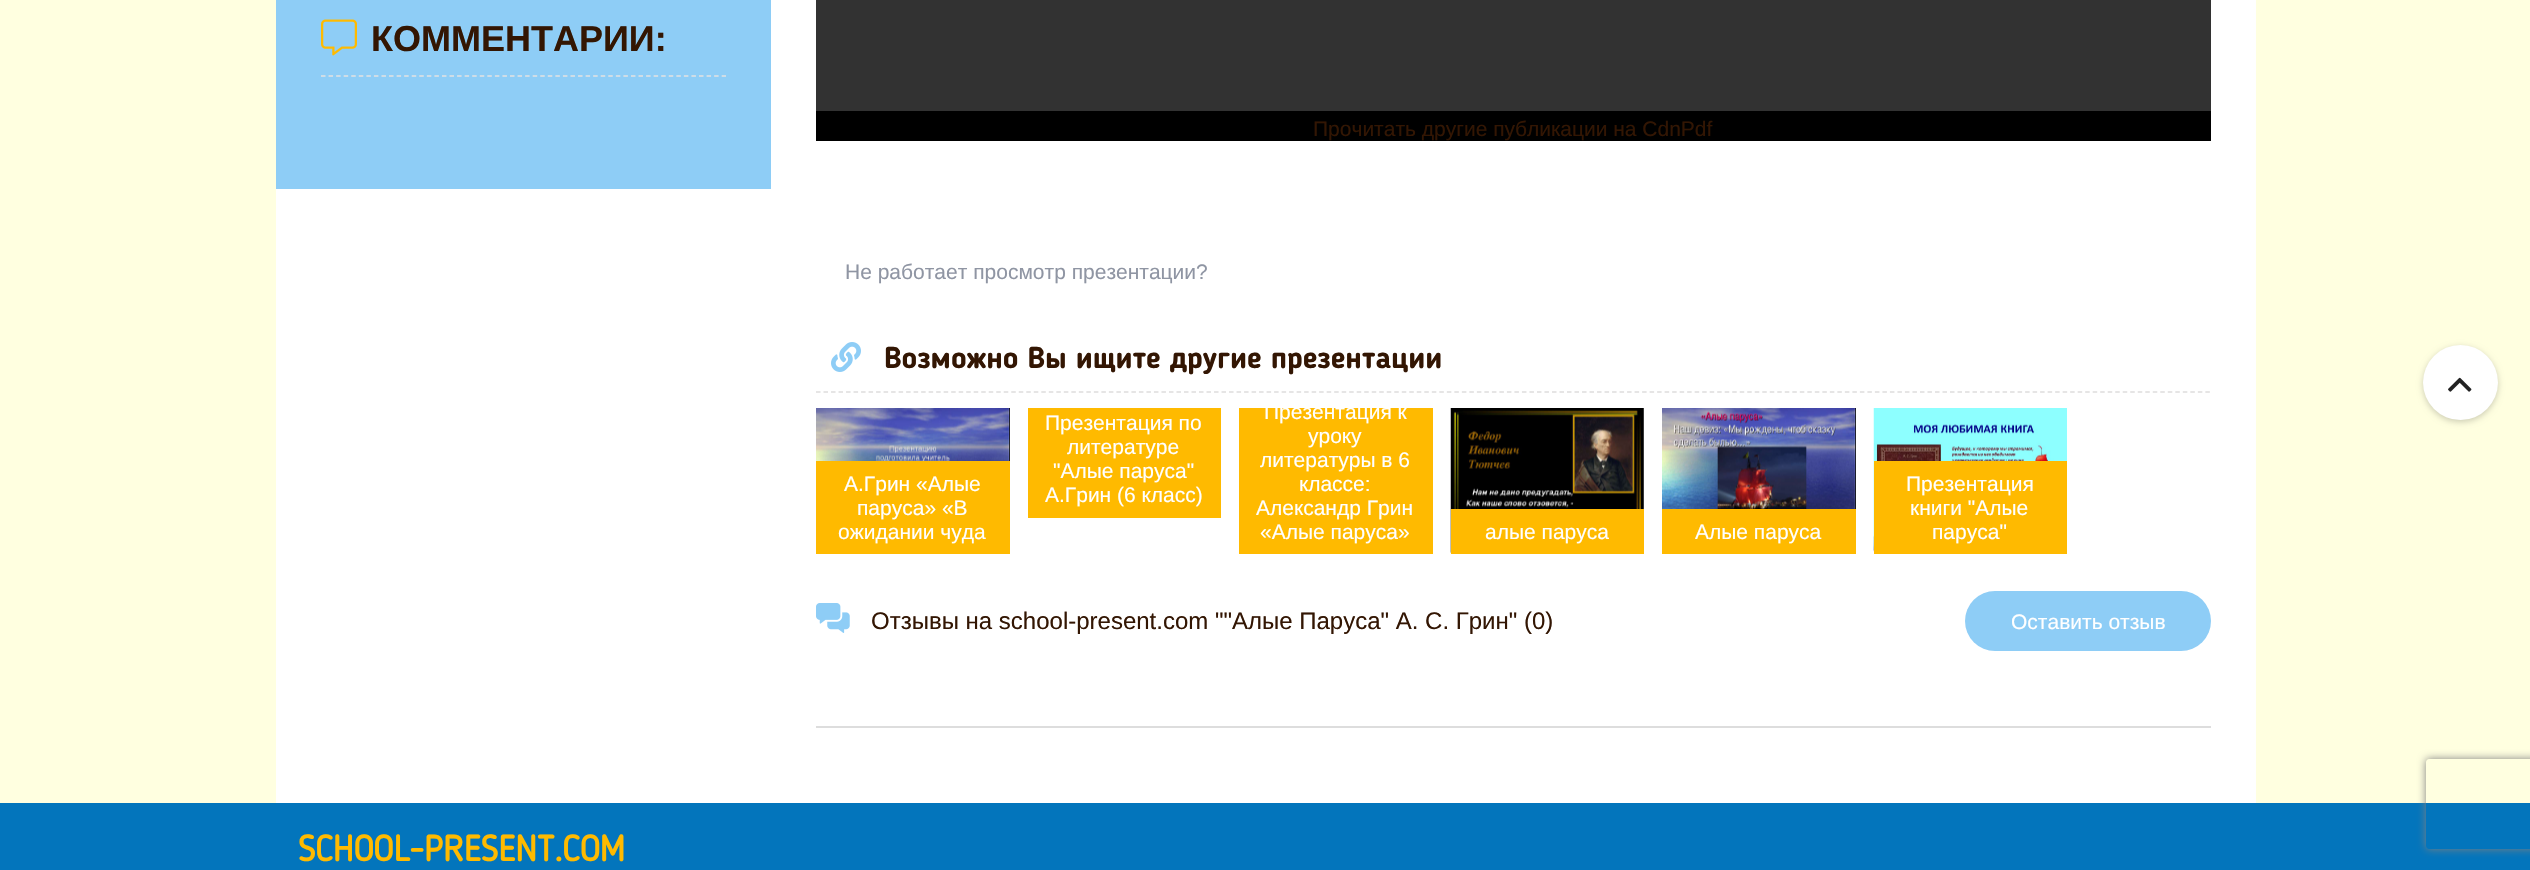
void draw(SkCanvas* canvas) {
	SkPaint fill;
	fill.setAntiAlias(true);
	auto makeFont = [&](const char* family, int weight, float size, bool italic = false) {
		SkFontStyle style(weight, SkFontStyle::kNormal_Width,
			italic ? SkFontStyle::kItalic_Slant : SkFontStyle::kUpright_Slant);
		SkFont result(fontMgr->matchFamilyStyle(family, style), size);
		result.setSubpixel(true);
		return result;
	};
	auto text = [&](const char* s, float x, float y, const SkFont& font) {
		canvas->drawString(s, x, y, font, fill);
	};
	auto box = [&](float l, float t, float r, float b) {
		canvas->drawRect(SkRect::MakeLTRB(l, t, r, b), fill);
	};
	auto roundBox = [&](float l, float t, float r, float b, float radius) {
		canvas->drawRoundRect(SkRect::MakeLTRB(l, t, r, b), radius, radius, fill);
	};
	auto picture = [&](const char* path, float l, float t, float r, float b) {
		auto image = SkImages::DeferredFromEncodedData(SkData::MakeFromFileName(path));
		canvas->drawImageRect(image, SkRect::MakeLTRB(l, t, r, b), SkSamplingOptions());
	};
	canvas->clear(0xFFFFFFE0);
	fill.setColor(0xFFFFFFFF);
	box(276, 0, 2256, 803);
	fill.setColor(0xFF8ECDF6);
	box(276, 0, 771, 189);
	fill.setStyle(SkPaint::kStroke_Style);
	fill.setStrokeWidth(1.5f);
	fill.setColor(0xFFE3E3E3);
	fill.setPathEffect(SkDashPathEffect::Make({{4.5f, 3.06f}}, 0));
	canvas->drawPath(SkPathBuilder().moveTo(321, 76).lineTo(726, 76).detach(), fill);
	fill.setPathEffect(nullptr);
	picture("image0.png", 321, 19, 357, 56);
	fill.setStyle(SkPaint::kFill_Style);
	fill.setColor(0xFF000000);
	box(816, 111, 2211, 141);
	fill.setColor(0xFF323232);
	box(816, 0, 2211, 111);
	fill.setStyle(SkPaint::kStroke_Style);
	fill.setColor(0xFFDEDDDD);
	fill.setPathEffect(SkDashPathEffect::Make({{4.5f, 3.01f}}, 0));
	canvas->drawPath(SkPathBuilder().moveTo(816, 392).lineTo(2211, 392).detach(), fill);
	fill.setPathEffect(nullptr);
	picture("image1.png", 831, 342, 861, 372);
	fill.setStyle(SkPaint::kFill_Style);
	fill.setColor(0xFF000000);
	box(1009, 408, 1010, 461);
	picture("image2.png", 816, 408, 1010, 461);
	fill.setColor(0xFFFFBA00);
	box(816, 461, 1010, 554);
	box(1028, 408, 1221, 518);
	box(1239, 408, 1433, 554);
	picture("image3.png", 1450, 408, 1644, 553);
	box(1451, 509, 1644, 554);
	fill.setColor(0xFF000000);
	box(1855, 408, 1856, 509);
	picture("image4.png", 1662, 408, 1856, 509);
	fill.setColor(0xFFFFBA00);
	box(1662, 509, 1856, 554);
	picture("image5.png", 1873, 408, 2067, 553);
	box(1874, 461, 2067, 554);
	picture("image6.png", 816, 603, 850, 633);
	fill.setColor(0xFF8ECDF6);
	roundBox(1965, 591, 2211, 651, 30);
	fill.setColor(0xFFDDDDDD);
	box(816, 726, 2211, 728);
	fill.setColor(0xFF0375BC);
	box(0, 803, 2530, 870);
	fill.setColor(0x33000000);
	fill.setMaskFilter(SkMaskFilter::MakeBlur(kNormal_SkBlurStyle, 3));
	canvas->drawRoundRect(SkRect::MakeLTRB(2423, 347, 2498, 422), 37.5f, 37.5f, fill);
	fill.setMaskFilter(nullptr);
	fill.setColor(0xFFFFFFFF);
	canvas->drawCircle(2460.5f, 382.5f, 37.5f, fill);
	picture("image7.png", 2448, 377, 2472, 392);
	canvas->save();
	canvas->clipPath(SkPathBuilder(SkPathFillType::kEvenOdd).moveTo(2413, 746).lineTo(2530, 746).lineTo(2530, 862).lineTo(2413, 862).close().moveTo(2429, 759).lineTo(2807, 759).cubicTo(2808.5f, 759, 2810, 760.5f, 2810, 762).lineTo(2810, 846).cubicTo(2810, 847.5f, 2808.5f, 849, 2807, 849).lineTo(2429, 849).cubicTo(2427.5f, 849, 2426, 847.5f, 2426, 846).lineTo(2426, 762).cubicTo(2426, 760.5f, 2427.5f, 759, 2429, 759).close().detach(), true);
	fill.setColor(0xFF808080);
	fill.setMaskFilter(SkMaskFilter::MakeBlur(kNormal_SkBlurStyle, 4));
	canvas->drawRoundRect(SkRect::MakeLTRB(2426, 759, 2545, 849), 3, 3, fill);
	fill.setMaskFilter(nullptr);
	canvas->restore();
	auto font1 = makeFont("Liberation Sans", 700, 36);
	fill.setColor(0xFF331603);
	text("КОММЕНТАРИИ:", 371, 51, font1);
	auto font2 = makeFont("Liberation Sans", 400, 21);
	text("Прочитать другие публикации на CdnPdf", 1313, 136, font2);
	fill.setColor(0xFF8F95A3);
	text("Не работает просмотр презентации?", 845, 279, font2);
	auto font3 = makeFont("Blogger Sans", 700, 30);
	fill.setColor(0xFF331603);
	text("Возможно Вы ищите другие презентации", 884, 368, font3);
	fill.setColor(0xFFFFFFFF);
	text("А.Грин «Алые", 844, 491, font2);
	text("паруса» «В", 857, 515, font2);
	text("ожидании чуда", 838, 539, font2);
	text("Презентация по", 1045, 430, font2);
	text("литературе", 1067, 454, font2);
	text("\"Алые паруса\"", 1053, 478, font2);
	text("А.Грин (6 класс)", 1045, 502, font2);
	canvas->save();
	canvas->clipRect(SkRect::MakeLTRB(816, 408, 2211, 554));
	text("Презентация к", 1264, 419, font2);
	canvas->restore();
	text("уроку", 1308, 443, font2);
	text("литературы в 6", 1260, 467, font2);
	text("классе:", 1299, 491, font2);
	text("Александр Грин", 1256, 515, font2);
	text("«Алые паруса»", 1260, 539, font2);
	text("алые паруса", 1485, 539, font2);
	text("Алые паруса", 1695, 539, font2);
	text("Презентация", 1906, 491, font2);
	text("книги \"Алые", 1910, 515, font2);
	text("паруса\"", 1932, 539, font2);
	auto font4 = makeFont("Liberation Sans", 400, 24);
	fill.setColor(0xFF331603);
	text("Отзывы на school-present.com \"\"Алые Паруса\" А. С. Грин\" (0)", 871, 629, font4);
	fill.setColor(0xFFFFFFFF);
	text("Оставить отзыв", 2011, 629, font2);
	auto font5 = makeFont("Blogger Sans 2", 700, 36);
	fill.setColor(0xFFFFBA00);
	text("SCHOOL-PRESENT.COM", 298, 861, font5);
}
